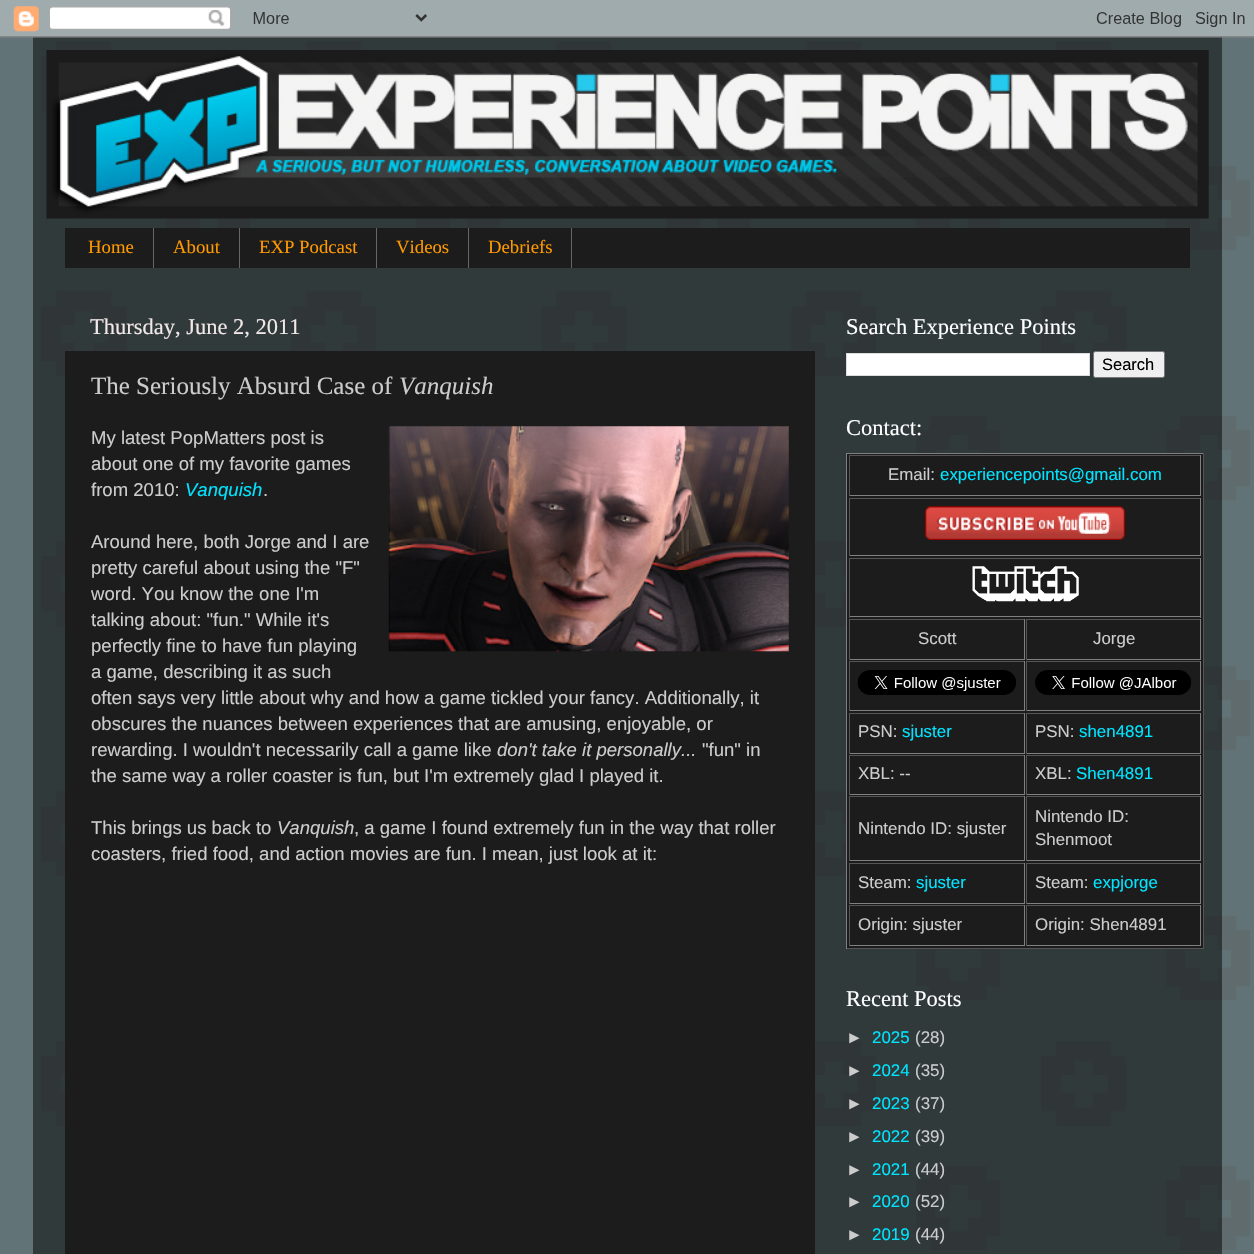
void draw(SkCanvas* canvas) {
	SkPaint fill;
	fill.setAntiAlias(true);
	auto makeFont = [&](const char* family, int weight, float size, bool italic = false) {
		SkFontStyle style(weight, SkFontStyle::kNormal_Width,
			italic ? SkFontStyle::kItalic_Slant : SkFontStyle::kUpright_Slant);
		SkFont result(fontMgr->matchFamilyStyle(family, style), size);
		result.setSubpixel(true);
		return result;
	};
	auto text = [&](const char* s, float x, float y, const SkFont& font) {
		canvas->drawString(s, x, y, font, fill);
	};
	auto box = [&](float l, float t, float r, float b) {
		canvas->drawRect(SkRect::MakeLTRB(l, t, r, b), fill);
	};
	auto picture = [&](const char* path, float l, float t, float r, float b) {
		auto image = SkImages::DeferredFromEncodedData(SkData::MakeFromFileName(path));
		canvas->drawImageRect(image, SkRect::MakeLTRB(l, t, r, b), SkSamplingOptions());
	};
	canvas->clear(0xFF617376);
	picture("image0.png", 41, 41, 1250, 1250);
	fill.setColor(0x80000000);
	box(33, 37, 1222, 1254);
	picture("image1.png", 0, 0, 1254, 38);
	picture("image2.png", 46, 50, 1209, 219);
	fill.setColor(0xFF1C1C1C);
	box(65, 228, 1190, 268);
	fill.setColor(0xFF666666);
	box(153, 228, 154, 268);
	box(239, 228, 240, 268);
	box(376, 228, 377, 268);
	box(468, 228, 469, 268);
	box(571, 228, 572, 268);
	fill.setColor(0xFF1C1C1C);
	box(65, 351, 815, 1254);
	picture("image3.png", 388, 426, 789, 652);
	fill.setColor(0xFFFFFFFF);
	canvas->drawRect(SkRect::MakeLTRB(846.5f, 353.5f, 1089.5f, 375.5f), fill);
	fill.setStyle(SkPaint::kStroke_Style);
	fill.setStrokeWidth(1);
	fill.setColor(0xFFDDDDDD);
	canvas->drawRect(SkRect::MakeLTRB(846.5f, 353.5f, 1089.5f, 375.5f), fill);
	fill.setStyle(SkPaint::kFill_Style);
	fill.setColor(0xFFEFEFEF);
	canvas->drawRoundRect(SkRect::MakeLTRB(1093.5f, 351.5f, 1164.5f, 377.5f), 2, 2, fill);
	fill.setStyle(SkPaint::kStroke_Style);
	fill.setColor(0xFF767676);
	canvas->drawRoundRect(SkRect::MakeLTRB(1093.5f, 351.5f, 1164.5f, 377.5f), 2, 2, fill);
	fill.setStyle(SkPaint::kFill_Style);
	fill.setColor(0xFF1C1C1C);
	box(847, 454, 1203, 948);
	fill.setColor(0xFF808080);
	box(846, 453, 1204, 454);
	fill.setColor(0xFF555555);
	box(1203, 453, 1204, 949);
	box(846, 948, 1204, 949);
	fill.setColor(0xFF808080);
	box(846, 453, 847, 949);
	fill.setColor(0xFF555555);
	box(849, 455, 1201, 456);
	fill.setColor(0xFF808080);
	box(1200, 455, 1201, 496);
	box(849, 495, 1201, 496);
	fill.setColor(0xFF555555);
	box(849, 455, 850, 496);
	box(849, 498, 1201, 499);
	fill.setColor(0xFF808080);
	box(1200, 498, 1201, 556);
	box(849, 555, 1201, 556);
	fill.setColor(0xFF555555);
	box(849, 498, 850, 556);
	picture("image4.png", 925, 506, 1125, 540);
	box(849, 558, 1201, 559);
	fill.setColor(0xFF808080);
	box(1200, 558, 1201, 618);
	box(849, 616, 1201, 617);
	fill.setColor(0xFF555555);
	box(849, 558, 850, 618);
	picture("image5.png", 972, 566, 1079, 602);
	box(849, 619, 1025, 620);
	fill.setColor(0xFF808080);
	box(1024, 619, 1025, 660);
	box(849, 659, 1025, 660);
	fill.setColor(0xFF555555);
	box(849, 619, 850, 660);
	box(1026, 619, 1201, 620);
	fill.setColor(0xFF808080);
	box(1200, 619, 1201, 660);
	box(1026, 659, 1201, 660);
	fill.setColor(0xFF555555);
	box(1026, 619, 1027, 660);
	box(849, 661, 1025, 662);
	fill.setColor(0xFF808080);
	box(1024, 661, 1025, 711);
	box(849, 710, 1025, 711);
	fill.setColor(0xFF555555);
	box(849, 661, 850, 711);
	picture("image6.png", 857, 670, 1016, 695);
	box(1026, 661, 1201, 662);
	fill.setColor(0xFF808080);
	box(1200, 661, 1201, 711);
	box(1026, 710, 1201, 711);
	fill.setColor(0xFF555555);
	box(1026, 661, 1027, 711);
	picture("image7.png", 1035, 670, 1191, 695);
	box(849, 713, 1025, 714);
	fill.setColor(0xFF808080);
	box(1024, 713, 1025, 754);
	box(849, 753, 1025, 754);
	fill.setColor(0xFF555555);
	box(849, 713, 850, 754);
	box(1026, 713, 1201, 714);
	fill.setColor(0xFF808080);
	box(1200, 713, 1201, 754);
	box(1026, 753, 1201, 754);
	fill.setColor(0xFF555555);
	box(1026, 713, 1027, 754);
	box(849, 755, 1025, 756);
	fill.setColor(0xFF808080);
	box(1024, 755, 1025, 795);
	box(849, 794, 1025, 795);
	fill.setColor(0xFF555555);
	box(849, 755, 850, 795);
	box(1026, 755, 1201, 756);
	fill.setColor(0xFF808080);
	box(1200, 755, 1201, 795);
	box(1026, 794, 1201, 795);
	fill.setColor(0xFF555555);
	box(1026, 755, 1027, 795);
	box(849, 796, 1025, 797);
	fill.setColor(0xFF808080);
	box(1024, 796, 1025, 861);
	box(849, 860, 1025, 861);
	fill.setColor(0xFF555555);
	box(849, 796, 850, 861);
	box(1026, 796, 1201, 797);
	fill.setColor(0xFF808080);
	box(1200, 796, 1201, 861);
	box(1026, 860, 1201, 861);
	fill.setColor(0xFF555555);
	box(1026, 796, 1027, 861);
	box(849, 863, 1025, 864);
	fill.setColor(0xFF808080);
	box(1024, 863, 1025, 904);
	box(849, 903, 1025, 904);
	fill.setColor(0xFF555555);
	box(849, 863, 850, 904);
	box(1026, 863, 1201, 864);
	fill.setColor(0xFF808080);
	box(1200, 863, 1201, 904);
	box(1026, 903, 1201, 904);
	fill.setColor(0xFF555555);
	box(1026, 863, 1027, 904);
	box(849, 905, 1025, 906);
	fill.setColor(0xFF808080);
	box(1024, 905, 1025, 946);
	box(849, 945, 1025, 946);
	fill.setColor(0xFF555555);
	box(849, 905, 850, 946);
	box(1026, 905, 1201, 906);
	fill.setColor(0xFF808080);
	box(1200, 905, 1201, 946);
	box(1026, 945, 1201, 946);
	fill.setColor(0xFF555555);
	box(1026, 905, 1027, 946);
	auto font1 = makeFont("Liberation Serif", 400, 18.75f);
	fill.setColor(0xFFFF9900);
	text("Home", 88, 253, font1);
	text("About", 173, 253, font1);
	text("EXP Podcast", 259, 253, font1);
	text("Videos", 396, 253, font1);
	text("Debriefs", 488, 253, font1);
	auto font2 = makeFont("Liberation Serif", 400, 22.5f);
	fill.setColor(0xFFF2E8E8);
	text("Thursday, June 2, 2011", 90, 334, font2);
	auto font3 = makeFont("Liberation Serif", 400, 25);
	fill.setColor(0xFFCCCCCC);
	text("The Seriously Absurd Case of", 91, 394, font3);
	auto font4 = makeFont("Liberation Serif", 400, 25, true);
	text("Vanquish", 399, 394, font4);
	auto font5 = makeFont("Liberation Sans", 400, 18.55f);
	text("My latest PopMatters post is", 91, 444, font5);
	text("about one of my favorite games", 91, 470, font5);
	text("from 2010:", 91, 496, font5);
	auto font6 = makeFont("Liberation Sans", 400, 18.55f, true);
	fill.setColor(0xFF00E4FF);
	text("Vanquish", 185, 496, font6);
	fill.setColor(0xFFCCCCCC);
	text(".", 263, 496, font5);
	text("Around here, both Jorge and I are", 91, 548, font5);
	text("pretty careful about using the \"F\"", 91, 574, font5);
	text("word. You know the one I'm", 91, 600, font5);
	text("talking about: \"fun.\" While it's", 91, 626, font5);
	text("perfectly fine to have fun playing", 91, 652, font5);
	text("a game, describing it as such", 91, 678, font5);
	text("often says very little about why and how a game tickled your fancy. Additionally, it", 91, 704, font5);
	text("obscures the nuances between experiences that are amusing, enjoyable, or", 91, 730, font5);
	text("rewarding. I wouldn't necessarily call a game like", 91, 756, font5);
	text("don't take it personally...", 497, 756, font6);
	text("\"fun\" in", 702, 756, font5);
	text("the same way a roller coaster is fun, but I'm extremely glad I played it.", 91, 782, font5);
	text("This brings us back to", 91, 834, font5);
	text("Vanquish", 277, 834, font6);
	text(", a game I found extremely fun in the way that roller", 354, 834, font5);
	text("coasters, fried food, and action movies are fun. I mean, just look at it:", 91, 860, font5);
	fill.setColor(0xFFFFFFFF);
	text("Search Experience Points", 846, 334, font2);
	auto font7 = makeFont("Liberation Sans", 400, 16.5f);
	fill.setColor(0xFF000000);
	text("Search", 1102, 370, font7);
	fill.setColor(0xFFFFFFFF);
	text("Contact:", 846, 435, font2);
	auto font8 = makeFont("Liberation Sans", 400, 16.9f);
	fill.setColor(0xFFCCCCCC);
	text("Email:", 888, 480, font8);
	fill.setColor(0xFF00E4FF);
	text("experiencepoints@gmail.com", 940, 480, font8);
	fill.setColor(0xFFCCCCCC);
	text("Scott", 918, 644, font8);
	text("Jorge", 1093, 644, font8);
	text("PSN:", 858, 737, font8);
	fill.setColor(0xFF00E4FF);
	text("sjuster", 902, 737, font8);
	fill.setColor(0xFFCCCCCC);
	text("PSN:", 1035, 737, font8);
	fill.setColor(0xFF00E4FF);
	text("shen4891", 1079, 737, font8);
	fill.setColor(0xFFCCCCCC);
	text("XBL: --", 858, 779, font8);
	text("XBL:", 1035, 779, font8);
	fill.setColor(0xFF00E4FF);
	text("Shen4891", 1076, 779, font8);
	fill.setColor(0xFFCCCCCC);
	text("Nintendo ID: sjuster", 858, 834, font8);
	text("Nintendo ID:", 1035, 822, font8);
	text("Shenmoot", 1035, 845, font8);
	text("Steam:", 858, 888, font8);
	fill.setColor(0xFF00E4FF);
	text("sjuster", 916, 888, font8);
	fill.setColor(0xFFCCCCCC);
	text("Steam:", 1035, 888, font8);
	fill.setColor(0xFF00E4FF);
	text("expjorge", 1093, 888, font8);
	fill.setColor(0xFFCCCCCC);
	text("Origin: sjuster", 858, 930, font8);
	text("Origin: Shen4891", 1035, 930, font8);
	fill.setColor(0xFFFFFFFF);
	text("Recent Posts", 846, 1006, font2);
	fill.setColor(0xFFCCCCCC);
	text("►", 846, 1043, font8);
	fill.setColor(0xFF00E4FF);
	text("2025", 872, 1043, font8);
	fill.setColor(0xFFCCCCCC);
	text("(28)", 915, 1043, font8);
	text("►", 846, 1076, font8);
	fill.setColor(0xFF00E4FF);
	text("2024", 872, 1076, font8);
	fill.setColor(0xFFCCCCCC);
	text("(35)", 915, 1076, font8);
	text("►", 846, 1109, font8);
	fill.setColor(0xFF00E4FF);
	text("2023", 872, 1109, font8);
	fill.setColor(0xFFCCCCCC);
	text("(37)", 915, 1109, font8);
	text("►", 846, 1142, font8);
	fill.setColor(0xFF00E4FF);
	text("2022", 872, 1142, font8);
	fill.setColor(0xFFCCCCCC);
	text("(39)", 915, 1142, font8);
	text("►", 846, 1175, font8);
	fill.setColor(0xFF00E4FF);
	text("2021", 872, 1175, font8);
	fill.setColor(0xFFCCCCCC);
	text("(44)", 915, 1175, font8);
	text("►", 846, 1207, font8);
	fill.setColor(0xFF00E4FF);
	text("2020", 872, 1207, font8);
	fill.setColor(0xFFCCCCCC);
	text("(52)", 915, 1207, font8);
	text("►", 846, 1240, font8);
	fill.setColor(0xFF00E4FF);
	text("2019", 872, 1240, font8);
	fill.setColor(0xFFCCCCCC);
	text("(44)", 915, 1240, font8);
}
